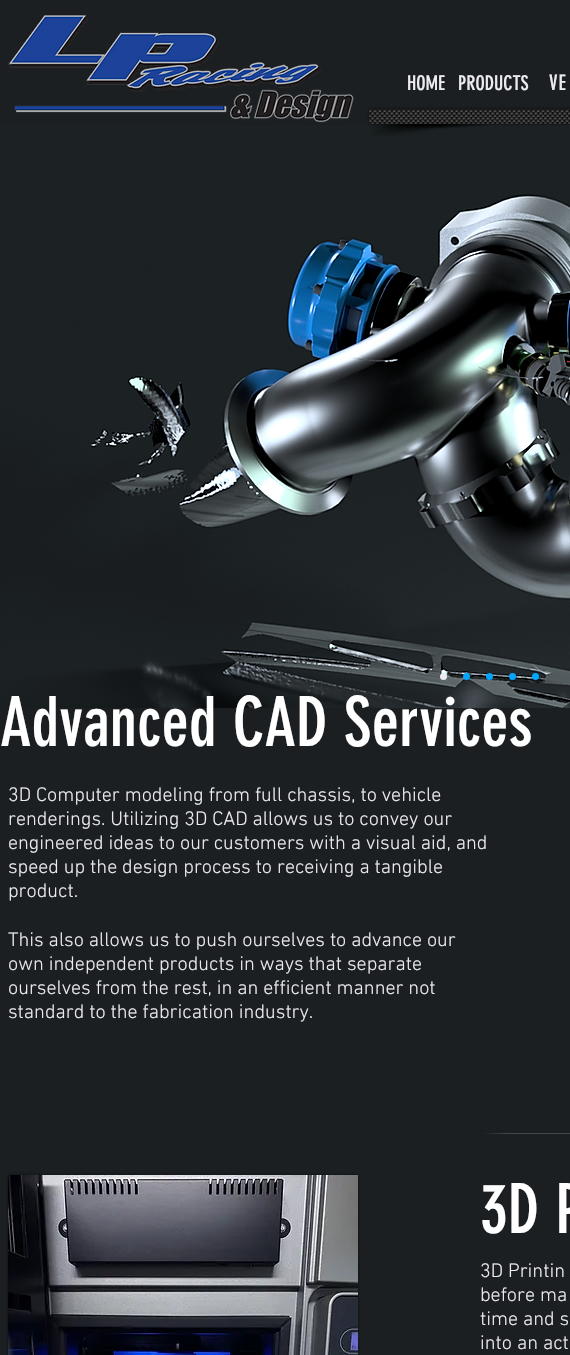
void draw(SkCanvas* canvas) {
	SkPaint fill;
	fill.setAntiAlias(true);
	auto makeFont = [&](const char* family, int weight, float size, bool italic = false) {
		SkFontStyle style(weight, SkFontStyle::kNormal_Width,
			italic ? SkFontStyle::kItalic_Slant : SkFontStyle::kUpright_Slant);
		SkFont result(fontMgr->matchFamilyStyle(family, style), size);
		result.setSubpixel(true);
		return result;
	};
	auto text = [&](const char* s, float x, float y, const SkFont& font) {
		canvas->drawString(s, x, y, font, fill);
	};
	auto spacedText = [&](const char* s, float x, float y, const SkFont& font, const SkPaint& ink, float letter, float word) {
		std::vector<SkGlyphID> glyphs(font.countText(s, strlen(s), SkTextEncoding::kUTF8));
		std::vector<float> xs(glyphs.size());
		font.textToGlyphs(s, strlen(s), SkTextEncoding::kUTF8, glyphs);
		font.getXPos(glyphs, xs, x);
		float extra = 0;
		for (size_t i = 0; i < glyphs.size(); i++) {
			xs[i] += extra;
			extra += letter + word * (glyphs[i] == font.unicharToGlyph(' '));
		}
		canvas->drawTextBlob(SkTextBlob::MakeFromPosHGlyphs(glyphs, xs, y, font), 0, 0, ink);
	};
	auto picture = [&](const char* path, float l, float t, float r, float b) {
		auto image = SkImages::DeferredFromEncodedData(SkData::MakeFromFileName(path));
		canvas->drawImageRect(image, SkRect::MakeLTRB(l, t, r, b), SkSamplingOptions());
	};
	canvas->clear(0xFF1B1F21);
	picture("image0.png", 8, 14, 354, 123);
	picture("image3.png", 0, 125, 570, 708);
	fill.setColor(0x80000000);
	fill.setMaskFilter(SkMaskFilter::MakeBlur(kNormal_SkBlurStyle, 1.5f));
	canvas->drawRect(SkRect::MakeLTRB(369, 109, 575, 124), fill);
	fill.setMaskFilter(nullptr);
	picture("image1.png", 369, 109, 570, 124);
	picture("image2.png", 371, 124, 489, 136);
	fill.setColor(0xFFEDEBF2);
	canvas->drawCircle(443.5f, 676.5f, 3.5f, fill);
	fill.setColor(0xFF00A6FF);
	canvas->drawCircle(466.5f, 676.5f, 3.5f, fill);
	canvas->drawCircle(489.5f, 676.5f, 3.5f, fill);
	canvas->drawCircle(512.5f, 676.5f, 3.5f, fill);
	canvas->drawCircle(535.5f, 676.5f, 3.5f, fill);
	picture("image4.png", 485, 1133, 510, 1134);
	picture("image5.png", 510, 1132, 570, 1134);
	fill.setColor(0x80000000);
	fill.setMaskFilter(SkMaskFilter::MakeBlur(kNormal_SkBlurStyle, 1.5f));
	canvas->drawRect(SkRect::MakeLTRB(8, 1175, 358, 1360), fill);
	fill.setMaskFilter(nullptr);
	picture("image6.png", 8, 1175, 358, 1355);
	auto font1 = makeFont("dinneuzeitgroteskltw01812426", 400, 20);
	fill.setColor(0xFFEDEBF2);
	text("HOME", 407, 90, font1);
	text("PRODUCTS", 458, 90, font1);
	auto font2 = makeFont("dinneuzeitgroteskltw01812426", 400, 21);
	spacedText("VE", 549, 90, font2, fill, 1, 0);
	auto font3 = makeFont("dinneuzeitgroteskltw01812426", 400, 68);
	fill.setColor(0xFFFFFFFF);
	text("Advanced CAD Services", 0, 746, font3);
	auto font4 = makeFont("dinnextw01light", 300, 20);
	fill.setColor(0xFFEDEBF2);
	text("3D Computer modeling from full chassis, to vehicle", 8, 801, font4);
	text("renderings. Utilizing 3D CAD allows us to convey our", 8, 825, font4);
	text("engineered ideas to our customers with a visual aid, and", 8, 849, font4);
	text("speed up the design process to receiving a tangible", 8, 873, font4);
	text("product.", 8, 897, font4);
	text("This also allows us to push ourselves to advance our", 8, 946, font4);
	text("own independent products in ways that separate", 8, 970, font4);
	text("ourselves from the rest, in an efficient manner not", 8, 994, font4);
	text("standard to the fabrication industry.", 8, 1018, font4);
	fill.setColor(0xFFFFFFFF);
	text("3D P", 480, 1233, font3);
	fill.setColor(0xFFEDEBF2);
	text("3D Printin", 480, 1277, font4);
	text("before ma", 480, 1301, font4);
	text("time and s", 480, 1325, font4);
	text("into an act", 480, 1349, font4);
}
